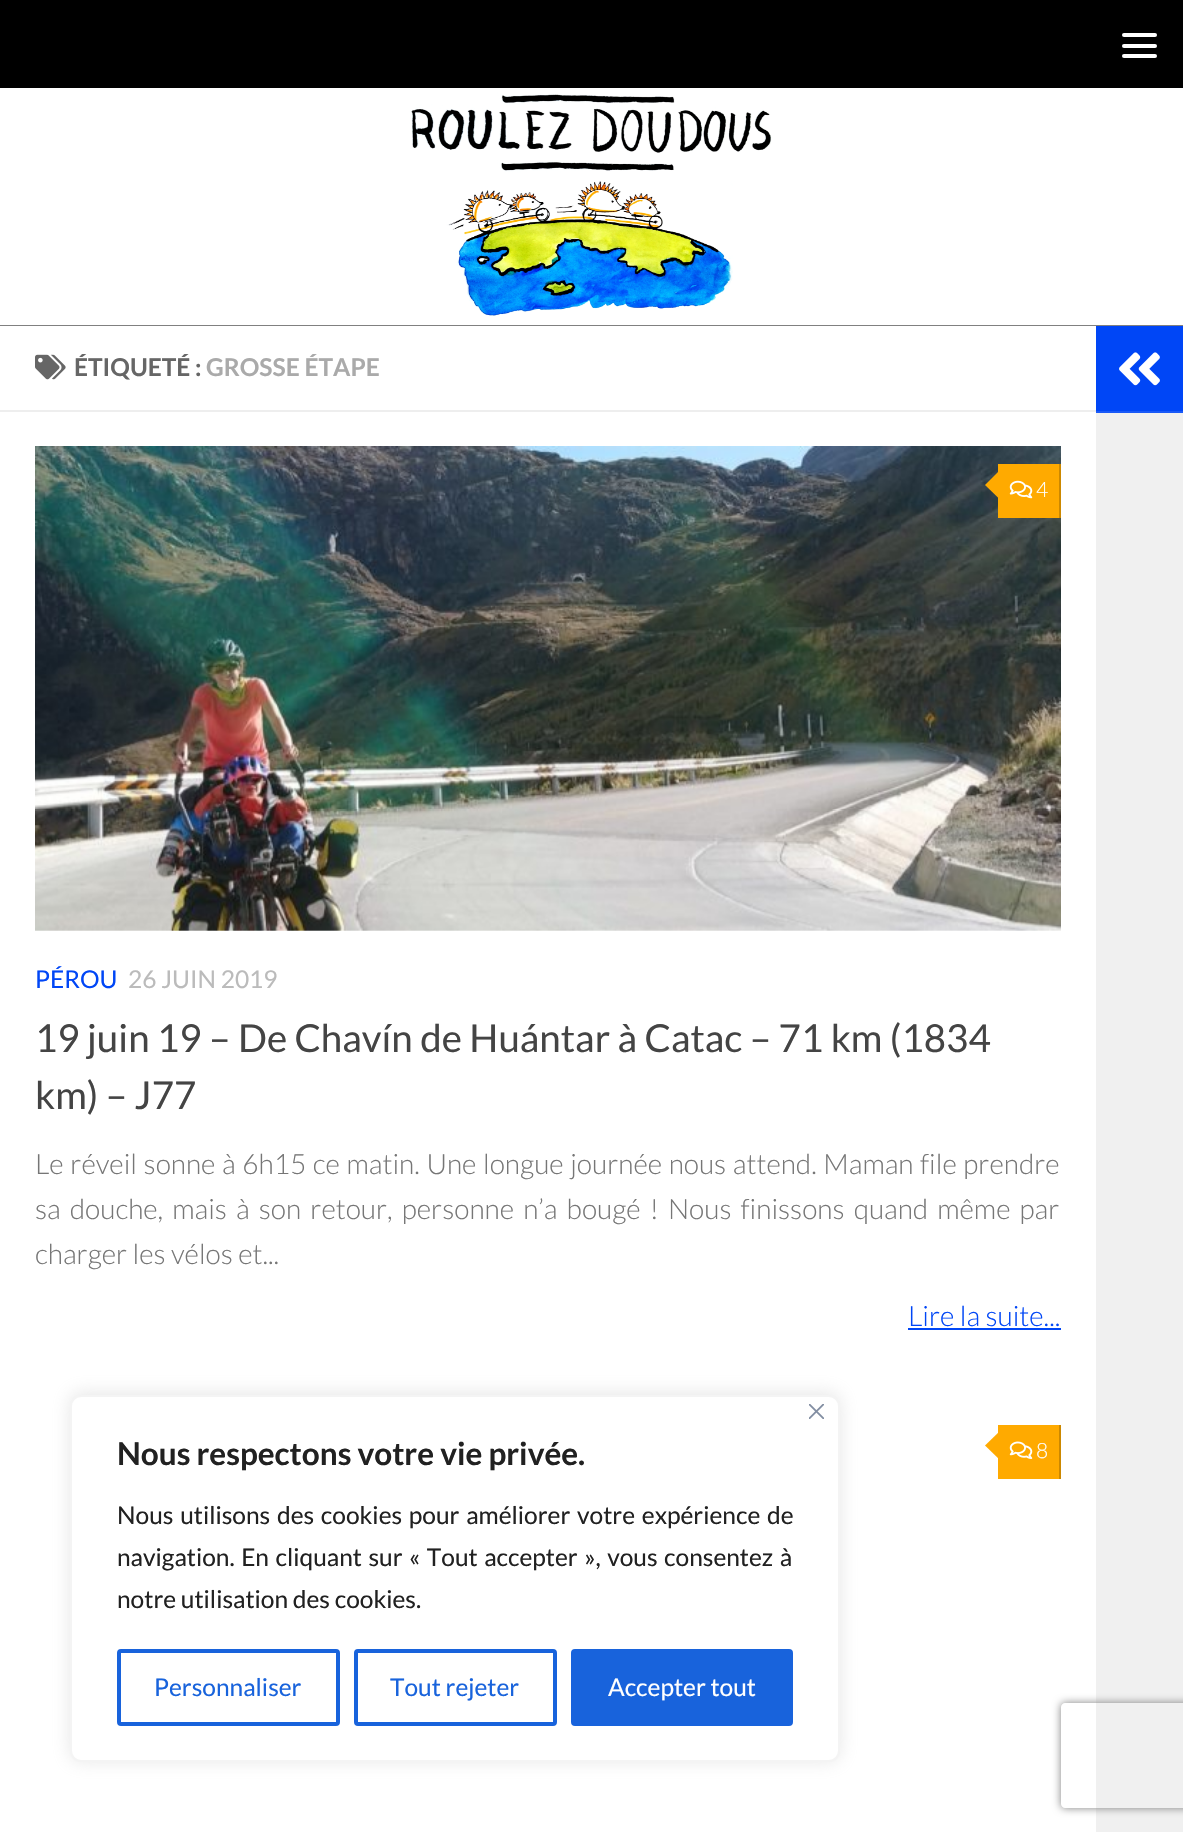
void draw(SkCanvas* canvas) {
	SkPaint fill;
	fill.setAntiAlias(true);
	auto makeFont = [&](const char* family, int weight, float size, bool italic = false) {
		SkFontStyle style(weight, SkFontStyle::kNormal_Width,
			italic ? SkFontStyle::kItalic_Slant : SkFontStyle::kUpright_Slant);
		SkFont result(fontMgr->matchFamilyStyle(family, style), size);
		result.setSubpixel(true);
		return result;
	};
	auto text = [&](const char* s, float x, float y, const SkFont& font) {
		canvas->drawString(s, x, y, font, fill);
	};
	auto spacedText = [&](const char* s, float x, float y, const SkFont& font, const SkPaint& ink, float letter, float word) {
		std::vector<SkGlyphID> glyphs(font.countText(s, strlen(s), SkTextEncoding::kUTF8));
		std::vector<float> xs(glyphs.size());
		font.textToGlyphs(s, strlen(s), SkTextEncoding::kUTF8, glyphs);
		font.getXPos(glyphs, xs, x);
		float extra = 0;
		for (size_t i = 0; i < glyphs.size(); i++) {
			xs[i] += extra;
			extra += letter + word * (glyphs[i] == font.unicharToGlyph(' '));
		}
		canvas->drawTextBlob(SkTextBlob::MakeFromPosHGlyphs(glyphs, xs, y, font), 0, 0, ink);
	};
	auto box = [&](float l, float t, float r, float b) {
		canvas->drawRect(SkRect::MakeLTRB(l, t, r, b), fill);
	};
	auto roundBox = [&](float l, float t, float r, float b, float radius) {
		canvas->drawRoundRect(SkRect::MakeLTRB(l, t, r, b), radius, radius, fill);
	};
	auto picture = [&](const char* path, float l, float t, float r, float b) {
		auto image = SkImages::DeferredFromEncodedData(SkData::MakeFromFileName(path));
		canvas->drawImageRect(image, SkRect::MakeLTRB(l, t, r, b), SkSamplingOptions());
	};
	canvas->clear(0xFF000000);
	fill.setColor(0xFFFFFFFF);
	roundBox(1122, 33, 1157, 37, 2);
	roundBox(1122, 44, 1157, 48, 2);
	roundBox(1122, 54, 1157, 58, 2);
	picture("image0.png", 0, 88, 1183, 326);
	box(0, 326, 1096, 1832);
	fill.setColor(0xFFEEEEEE);
	box(0, 410, 1096, 412);
	picture("image1.png", 35, 354, 66, 380);
	picture("image2.png", 35, 446, 1061, 931);
	fill.setColor(0xFFFFAA00);
	box(998, 464, 1059, 518);
	fill.setColor(0xFFCC8800);
	box(1059, 464, 1061, 518);
	fill.setColor(0xFFFFAA00);
	canvas->drawPath(SkPathBuilder().moveTo(1001, 469).lineTo(1001, 500.5f).lineTo(985, 485).close().detach(), fill);
	picture("image3.png", 1009, 480, 1033, 499);
	fill.setColor(0xFF0046F6);
	box(908, 1328, 1061, 1330);
	fill.setColor(0xFFFFAA00);
	box(998, 1425, 1059, 1479);
	fill.setColor(0xFFCC8800);
	box(1059, 1425, 1061, 1479);
	fill.setColor(0xFFFFAA00);
	canvas->drawPath(SkPathBuilder().moveTo(1001, 1430).lineTo(1001, 1461).lineTo(985, 1445.5f).close().detach(), fill);
	picture("image4.png", 1009, 1441, 1033, 1459);
	fill.setColor(0xFF0046F6);
	box(1096, 326, 1183, 411);
	fill.setColor(0xFF1A59F7);
	box(1096, 411, 1183, 413);
	picture("image5.png", 1119, 352, 1160, 386);
	fill.setColor(0xFFF0F0F0);
	box(1096, 413, 1183, 1832);
	fill.setColor(0x4DACABAB);
	fill.setMaskFilter(SkMaskFilter::MakeBlur(kNormal_SkBlurStyle, 9));
	canvas->drawRoundRect(SkRect::MakeLTRB(70, 1393, 840, 1761), 11, 11, fill);
	fill.setMaskFilter(nullptr);
	fill.setColor(0xFFFFFFFF);
	canvas->drawRoundRect(SkRect::MakeLTRB(71, 1396, 839, 1761), 10, 10, fill);
	fill.setStyle(SkPaint::kStroke_Style);
	fill.setStrokeWidth(2);
	fill.setColor(0xFFF4F4F4);
	canvas->drawRoundRect(SkRect::MakeLTRB(71, 1396, 839, 1761), 10, 10, fill);
	picture("image6.png", 809, 1404, 824, 1419);
	fill.setStrokeWidth(4);
	fill.setColor(0xFF1863DC);
	canvas->drawRoundRect(SkRect::MakeLTRB(119, 1651, 338, 1724), 2, 2, fill);
	canvas->drawRoundRect(SkRect::MakeLTRB(356, 1651, 555, 1724), 2, 2, fill);
	fill.setStyle(SkPaint::kFill_Style);
	canvas->drawRoundRect(SkRect::MakeLTRB(573, 1651, 791, 1724), 2, 2, fill);
	fill.setStyle(SkPaint::kStroke_Style);
	canvas->drawRoundRect(SkRect::MakeLTRB(573, 1651, 791, 1724), 2, 2, fill);
	canvas->save();
	canvas->clipPath(SkPathBuilder(SkPathFillType::kEvenOdd).moveTo(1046, 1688).lineTo(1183, 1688).lineTo(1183, 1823).lineTo(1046, 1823).close().moveTo(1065, 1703).lineTo(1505, 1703).cubicTo(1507, 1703, 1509, 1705, 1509, 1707).lineTo(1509, 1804).cubicTo(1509, 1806, 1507, 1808, 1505, 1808).lineTo(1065, 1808).cubicTo(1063, 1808, 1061, 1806, 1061, 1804).lineTo(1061, 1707).cubicTo(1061, 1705, 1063, 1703, 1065, 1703).close().detach(), true);
	fill.setStyle(SkPaint::kFill_Style);
	fill.setColor(0xFF808080);
	fill.setMaskFilter(SkMaskFilter::MakeBlur(kNormal_SkBlurStyle, 4.5f));
	canvas->drawRoundRect(SkRect::MakeLTRB(1061, 1703, 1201, 1808), 4, 4, fill);
	fill.setMaskFilter(nullptr);
	canvas->restore();
	auto font1 = makeFont("Lato", 700, 24.5f);
	fill.setColor(0xFF666666);
	text("ÉTIQUETÉ :", 74, 376, font1);
	fill.setColor(0xFFAAAAAA);
	text("GROSSE ÉTAPE", 206, 376, font1);
	auto font2 = makeFont("Lato", 300, 21);
	fill.setColor(0xFFFFFFFF);
	text("4", 1036, 497, font2);
	auto font3 = makeFont("Lato", 400, 24.5f);
	fill.setColor(0xFF0046F6);
	text("PÉROU", 35, 988, font3);
	fill.setColor(0xFFBBBBBB);
	text("26 JUIN 2019", 128, 988, font3);
	auto font4 = makeFont("Lato", 400, 38.5f);
	fill.setColor(0xFF444444);
	text("19 juin 19 – De Chavín de Huántar à Catac – 71 km (1834", 35, 1052, font4);
	text("km) – J77", 35, 1109, font4);
	auto font5 = makeFont("Lato", 300, 28);
	fill.setColor(0xFF767676);
	spacedText("Le réveil sonne à 6h15 ce matin. Une longue journée nous attend. Maman file prendre", 35, 1174, font5, fill, 0, 1.25f);
	spacedText("sa douche, mais à son retour, personne n’a bougé ! Nous finissons quand même par", 35, 1219, font5, fill, 0, 3.75f);
	text("charger les vélos et...", 35, 1264, font5);
	fill.setColor(0xFF0046F6);
	text("Lire la suite...", 908, 1326, font5);
	fill.setColor(0xFFFFFFFF);
	text("8", 1036, 1458, font2);
	auto font6 = makeFont("Lato", 700, 31.5f);
	fill.setColor(0xFF212121);
	text("Nous respectons votre vie privée.", 117, 1465, font6);
	spacedText("Nous utilisons des cookies pour améliorer votre expérience de", 117, 1524, font3, fill, 0, 2);
	spacedText("navigation. En cliquant sur « Tout accepter », vous consentez à", 117, 1566, font3, fill, 0, 1.75f);
	text("notre utilisation des cookies.", 117, 1608, font3);
	fill.setColor(0xFF1863DC);
	text("Personnaliser", 154, 1696, font3);
	text("Tout rejeter", 390, 1696, font3);
	fill.setColor(0xFFFFFFFF);
	text("Accepter tout", 608, 1696, font3);
}
